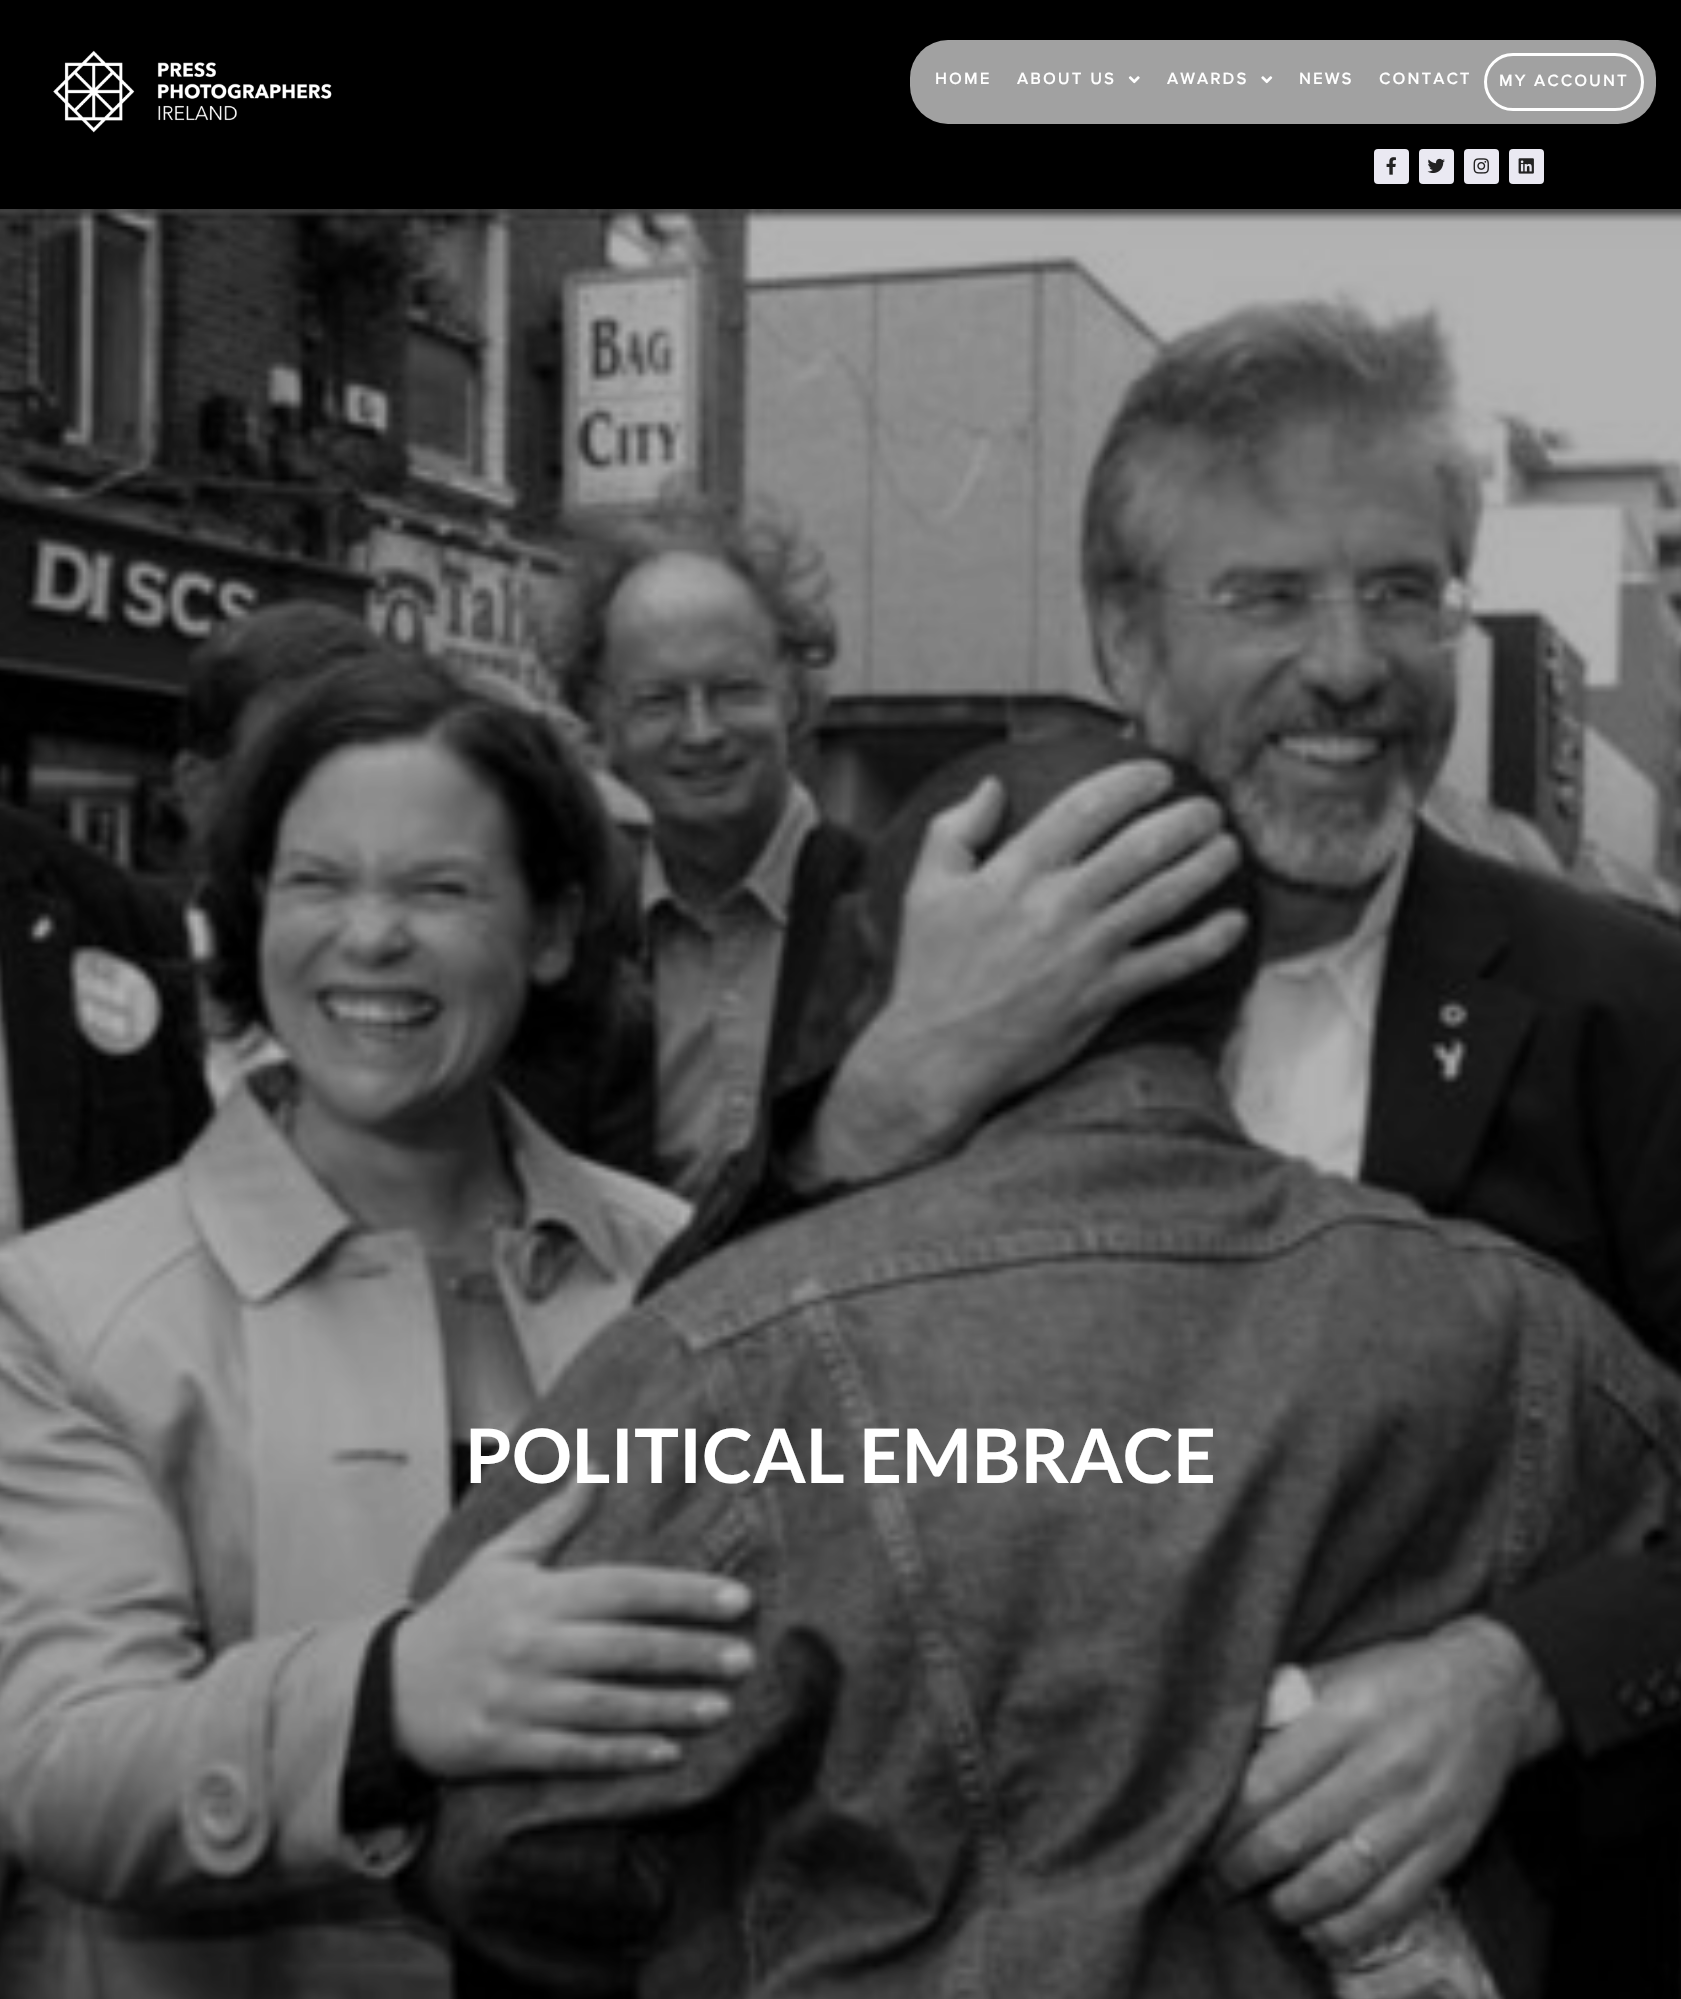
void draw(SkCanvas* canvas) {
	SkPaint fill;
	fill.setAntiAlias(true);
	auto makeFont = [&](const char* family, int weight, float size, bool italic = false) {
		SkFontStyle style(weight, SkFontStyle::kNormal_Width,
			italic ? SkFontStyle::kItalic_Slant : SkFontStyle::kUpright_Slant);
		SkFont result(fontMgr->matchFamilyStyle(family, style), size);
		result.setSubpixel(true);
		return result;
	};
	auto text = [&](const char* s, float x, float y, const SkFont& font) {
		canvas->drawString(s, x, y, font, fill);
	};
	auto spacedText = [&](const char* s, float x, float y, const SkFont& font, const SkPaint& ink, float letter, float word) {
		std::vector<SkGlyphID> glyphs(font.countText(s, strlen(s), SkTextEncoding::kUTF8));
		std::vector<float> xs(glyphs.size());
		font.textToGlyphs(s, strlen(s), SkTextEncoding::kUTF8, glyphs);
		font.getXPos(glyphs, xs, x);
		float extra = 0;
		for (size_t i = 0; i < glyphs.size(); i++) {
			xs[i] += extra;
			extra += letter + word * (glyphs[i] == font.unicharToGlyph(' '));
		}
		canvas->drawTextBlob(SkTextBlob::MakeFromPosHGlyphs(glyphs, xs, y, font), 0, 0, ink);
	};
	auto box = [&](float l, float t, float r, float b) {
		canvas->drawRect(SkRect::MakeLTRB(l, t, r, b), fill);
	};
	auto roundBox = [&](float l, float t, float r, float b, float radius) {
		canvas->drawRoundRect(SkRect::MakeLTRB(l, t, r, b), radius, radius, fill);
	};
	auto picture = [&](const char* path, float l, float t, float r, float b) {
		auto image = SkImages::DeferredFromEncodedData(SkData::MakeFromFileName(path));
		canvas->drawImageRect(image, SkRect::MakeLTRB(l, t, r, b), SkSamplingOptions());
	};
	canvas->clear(0xFFFFFFFF);
	fill.setColor(0xFF000000);
	box(0, 0, 1681, 209);
	picture("image0.png", 53, 50, 332, 133);
	fill.setColor(0xFFA1A1A1);
	roundBox(910, 40, 1656, 124, 38);
	picture("image1.png", 1128, 76, 1140, 84);
	picture("image2.png", 1261, 76, 1273, 84);
	fill.setStyle(SkPaint::kStroke_Style);
	fill.setStrokeWidth(3);
	fill.setColor(0xFFFFFFFF);
	canvas->drawRoundRect(SkRect::MakeLTRB(1485.5f, 54.5f, 1642.5f, 109.5f), 27.5f, 27.5f, fill);
	fill.setStyle(SkPaint::kFill_Style);
	fill.setColor(0xFFEAE9F2);
	roundBox(1374, 149, 1409, 184, 4);
	picture("image3.png", 1386, 157, 1396, 175);
	roundBox(1419, 149, 1454, 184, 4);
	picture("image4.png", 1427, 158, 1445, 173);
	roundBox(1464, 149, 1499, 184, 4);
	picture("image5.png", 1473, 158, 1489, 174);
	roundBox(1509, 149, 1544, 184, 4);
	picture("image6.png", 1518, 158, 1534, 174);
	picture("image7.png", 0, 209, 1681, 1999);
	auto font1 = makeFont("Proxima Nova", 700, 16.25f);
	fill.setColor(0xFFFFFFFF);
	spacedText("HOME", 935, 84, font1, fill, 2.5f, 0);
	spacedText("ABOUT US", 1017, 84, font1, fill, 2.5f, 0);
	spacedText("AWARDS", 1167, 84, font1, fill, 2.5f, 0);
	spacedText("NEWS", 1299, 84, font1, fill, 2.5f, 0);
	spacedText("CONTACT", 1379, 84, font1, fill, 2.5f, 0);
	spacedText("MY ACCOUNT", 1499, 86, font1, fill, 2.5f, 0);
	auto font2 = makeFont("Lato", 700, 75);
	text("POLITICAL EMBRACE", 465, 1483, font2);
}
